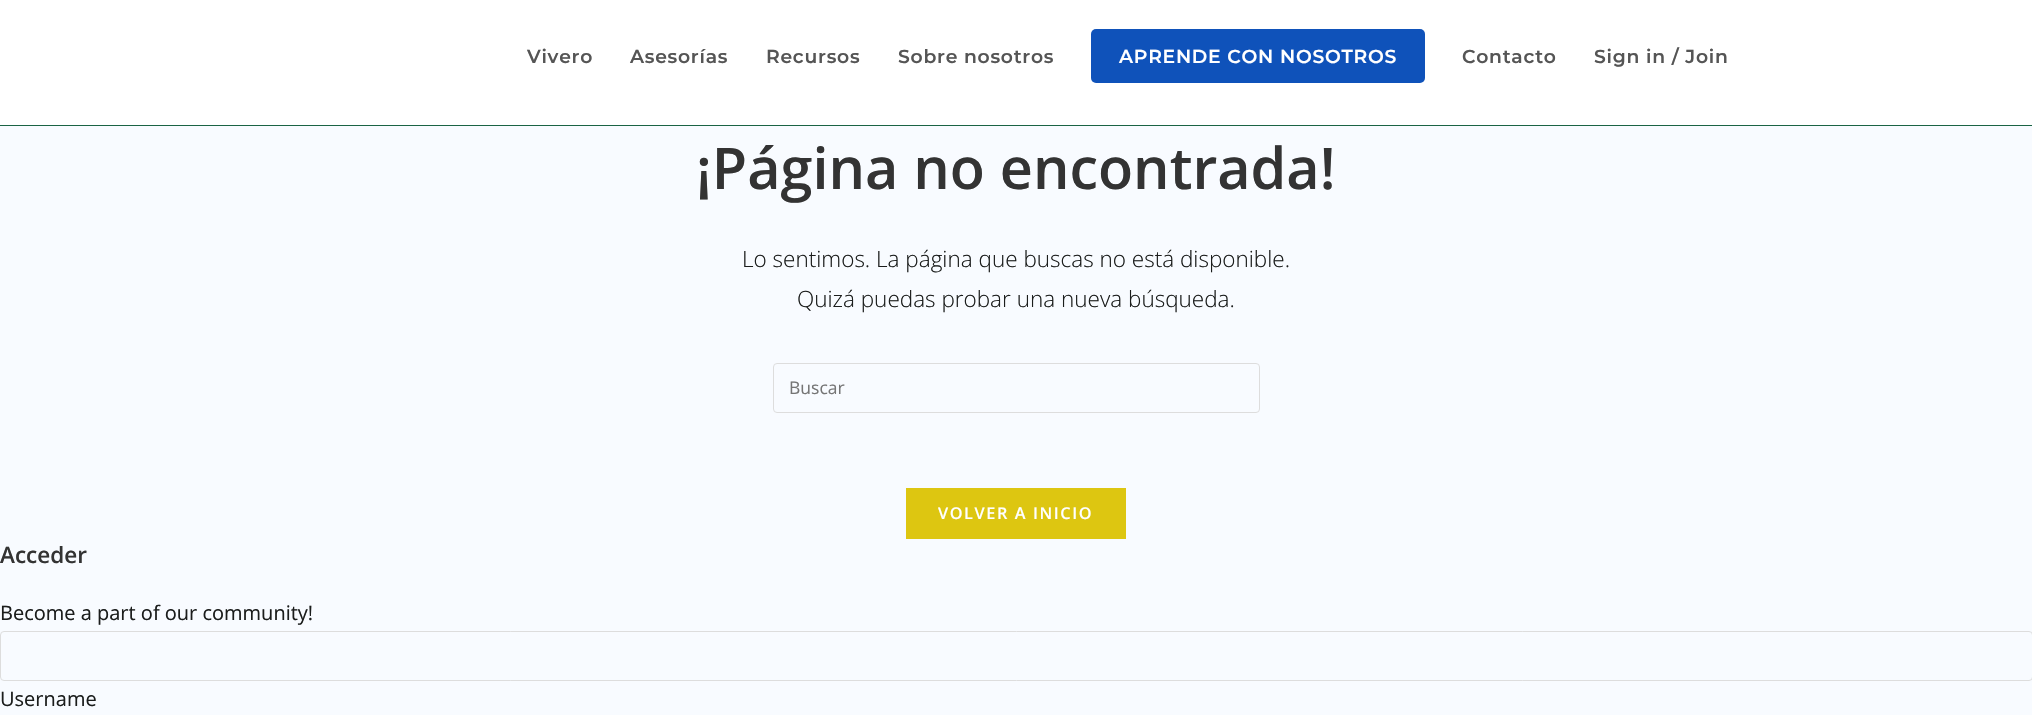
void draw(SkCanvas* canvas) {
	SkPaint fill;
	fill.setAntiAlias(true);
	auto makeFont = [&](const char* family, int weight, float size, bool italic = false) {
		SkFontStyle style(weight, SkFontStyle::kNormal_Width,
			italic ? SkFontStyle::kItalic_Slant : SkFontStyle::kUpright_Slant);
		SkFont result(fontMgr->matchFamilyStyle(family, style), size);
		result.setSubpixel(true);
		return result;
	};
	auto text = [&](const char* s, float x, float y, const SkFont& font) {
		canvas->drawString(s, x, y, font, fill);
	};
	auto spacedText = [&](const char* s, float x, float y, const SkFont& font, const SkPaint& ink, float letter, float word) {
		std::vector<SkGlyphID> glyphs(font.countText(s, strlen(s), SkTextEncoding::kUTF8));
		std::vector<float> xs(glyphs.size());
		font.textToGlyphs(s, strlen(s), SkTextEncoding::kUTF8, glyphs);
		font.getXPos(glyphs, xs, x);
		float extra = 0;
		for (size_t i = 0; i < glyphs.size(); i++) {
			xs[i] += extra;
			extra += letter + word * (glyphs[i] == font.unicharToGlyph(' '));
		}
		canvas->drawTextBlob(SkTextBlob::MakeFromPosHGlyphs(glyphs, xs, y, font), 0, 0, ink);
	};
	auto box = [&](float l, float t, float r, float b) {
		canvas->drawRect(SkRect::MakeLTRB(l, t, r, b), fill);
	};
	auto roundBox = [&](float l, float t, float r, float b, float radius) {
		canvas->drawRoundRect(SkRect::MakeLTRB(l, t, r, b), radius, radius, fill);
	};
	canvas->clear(0xFFF8FBFF);
	fill.setColor(0xFFFFFFFF);
	box(0, 0, 2032, 125);
	fill.setColor(0xFF1A6444);
	box(0, 125, 2032, 126);
	fill.setColor(0xFF0F52BA);
	roundBox(1091, 29, 1425, 83, 5);
	fill.setStyle(SkPaint::kStroke_Style);
	fill.setStrokeWidth(1);
	fill.setColor(0xFFDDDDDD);
	canvas->drawRoundRect(SkRect::MakeLTRB(773.5f, 363.5f, 1259.5f, 412.5f), 3.5f, 3.5f, fill);
	fill.setStyle(SkPaint::kFill_Style);
	fill.setColor(0xFFDDC611);
	box(906, 488, 1126, 539);
	fill.setStyle(SkPaint::kStroke_Style);
	fill.setColor(0xFFDDDDDD);
	canvas->drawRoundRect(SkRect::MakeLTRB(0.5f, 631.5f, 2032.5f, 680.5f), 3.5f, 3.5f, fill);
	auto font1 = makeFont("Montserrat", 600, 18.75f);
	fill.setStyle(SkPaint::kFill_Style);
	fill.setColor(0xFF555555);
	spacedText("Vivero", 527, 63, font1, fill, 0.75f, 0);
	spacedText("Asesorías", 630, 63, font1, fill, 0.75f, 0);
	spacedText("Recursos", 766, 63, font1, fill, 0.75f, 0);
	spacedText("Sobre nosotros", 898, 63, font1, fill, 0.75f, 0);
	fill.setColor(0xFFFFFFFF);
	spacedText("APRENDE CON NOSOTROS", 1119, 63, font1, fill, 0.75f, 0);
	fill.setColor(0xFF555555);
	spacedText("Contacto", 1462, 63, font1, fill, 0.75f, 0);
	spacedText("Sign in / Join", 1594, 63, font1, fill, 0.75f, 0);
	auto font2 = makeFont("Open Sans", 600, 57.5f);
	fill.setColor(0xFF333333);
	text("¡Página no encontrada!", 696, 189, font2);
	auto font3 = makeFont("Open Sans", 300, 22.5f);
	fill.setColor(0xFF1B1D1C);
	text("Lo sentimos. La página que buscas no está disponible.", 742, 267, font3);
	text("Quizá puedas probar una nueva búsqueda.", 797, 307, font3);
	auto font4 = makeFont("Open Sans", 400, 17.5f);
	fill.setColor(0xFF757575);
	text("Buscar", 789, 394, font4);
	auto font5 = makeFont("Open Sans", 600, 16.25f);
	fill.setColor(0xFFFFFFFF);
	spacedText("VOLVER A INICIO", 938, 519, font5, fill, 1.6f, 0);
	auto font6 = makeFont("Open Sans", 600, 22.5f);
	fill.setColor(0xFF333333);
	text("Acceder", 0, 563, font6);
	auto font7 = makeFont("Open Sans", 400, 20);
	fill.setColor(0xFF1B1D1C);
	text("Become a part of our community!", 0, 620, font7);
	text("Username", 0, 706, font7);
}
